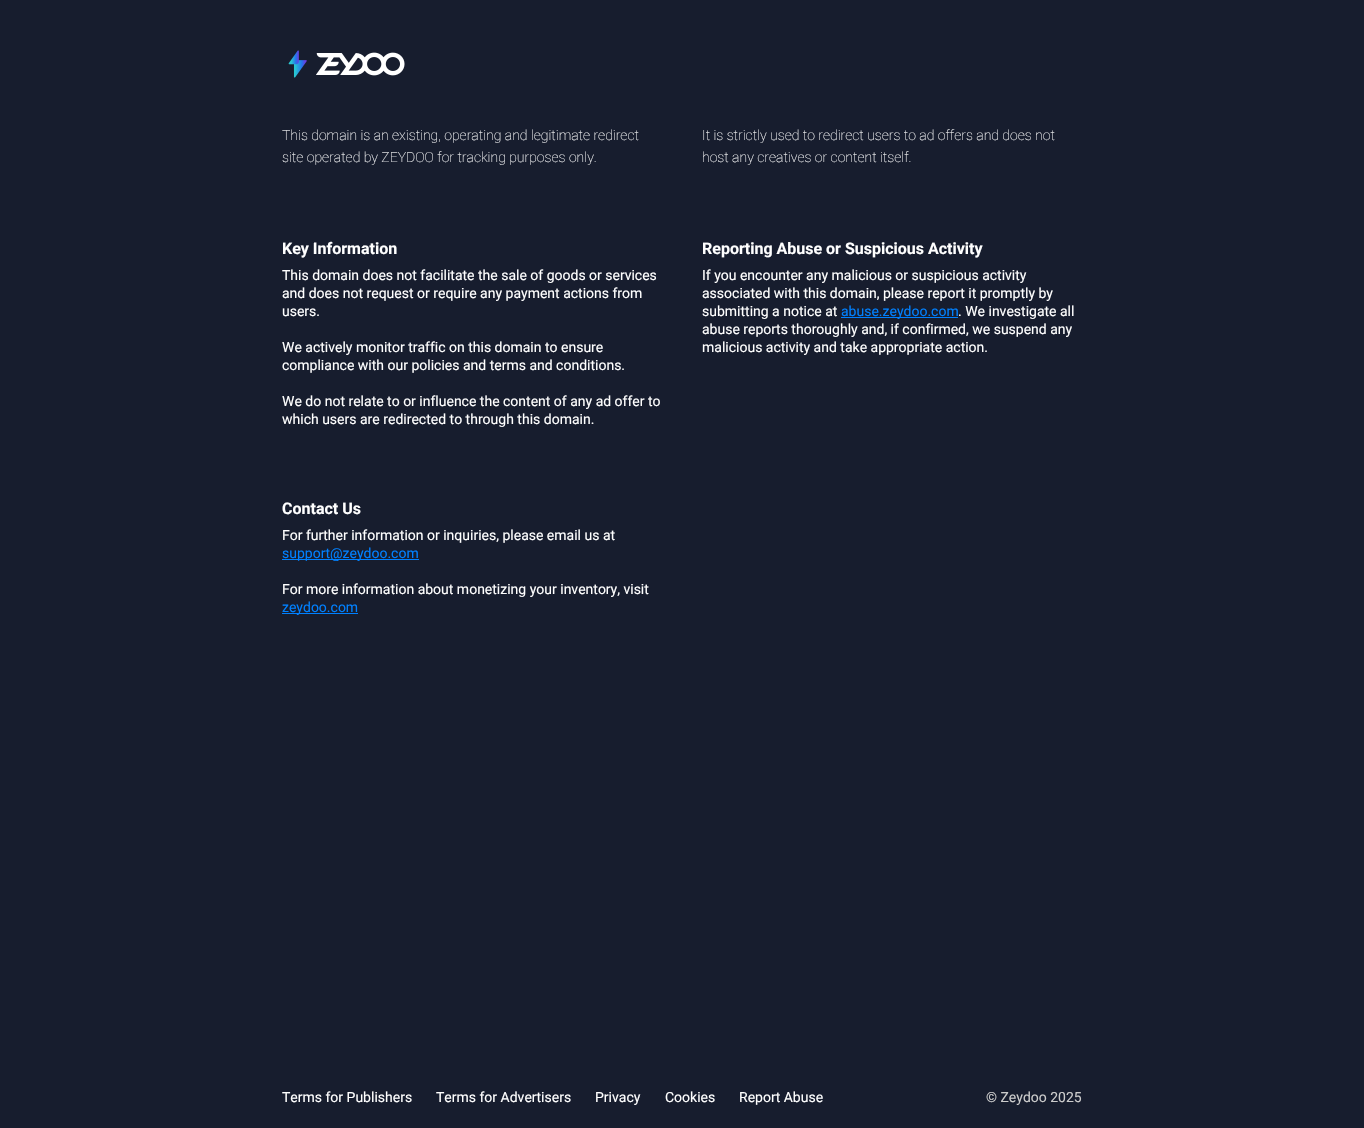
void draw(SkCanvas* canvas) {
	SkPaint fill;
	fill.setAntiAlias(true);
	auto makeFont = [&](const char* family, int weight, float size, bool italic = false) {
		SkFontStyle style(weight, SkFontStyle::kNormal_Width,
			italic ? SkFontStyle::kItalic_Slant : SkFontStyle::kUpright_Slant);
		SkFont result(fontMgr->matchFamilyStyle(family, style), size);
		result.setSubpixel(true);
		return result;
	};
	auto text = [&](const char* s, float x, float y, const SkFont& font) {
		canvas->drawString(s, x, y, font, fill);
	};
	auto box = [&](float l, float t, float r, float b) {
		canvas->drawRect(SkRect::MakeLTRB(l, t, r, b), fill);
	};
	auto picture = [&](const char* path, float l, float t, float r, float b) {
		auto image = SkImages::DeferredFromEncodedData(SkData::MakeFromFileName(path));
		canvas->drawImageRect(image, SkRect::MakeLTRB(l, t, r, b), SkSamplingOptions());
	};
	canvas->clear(0xFF171D2E);
	picture("image0.png", 288, 50, 405, 78);
	fill.setColor(0xFF0080FF);
	box(841, 317, 958, 318);
	box(282, 559, 419, 560);
	box(282, 613, 358, 614);
	auto font1 = makeFont("Roboto", 100, 14);
	fill.setColor(0xFFFFFFFF);
	text("This domain is an existing, operating and legitimate redirect", 282, 140, font1);
	text("site operated by ZEYDOO for tracking purposes only.", 282, 162, font1);
	text("It is strictly used to redirect users to ad offers and does not", 702, 140, font1);
	text("host any creatives or content itself.", 702, 162, font1);
	auto font2 = makeFont("Roboto", 700, 16);
	text("Key Information", 282, 254, font2);
	auto font3 = makeFont("Roboto", 400, 14);
	text("This domain does not facilitate the sale of goods or services", 282, 280, font3);
	text("and does not request or require any payment actions from", 282, 298, font3);
	text("users.", 282, 316, font3);
	text("We actively monitor traffic on this domain to ensure", 282, 352, font3);
	text("compliance with our policies and terms and conditions.", 282, 370, font3);
	text("We do not relate to or influence the content of any ad offer to", 282, 406, font3);
	text("which users are redirected to through this domain.", 282, 424, font3);
	text("Reporting Abuse or Suspicious Activity", 702, 254, font2);
	text("If you encounter any malicious or suspicious activity", 702, 280, font3);
	text("associated with this domain, please report it promptly by", 702, 298, font3);
	text("submitting a notice at", 702, 316, font3);
	fill.setColor(0xFF0080FF);
	text("abuse.zeydoo.com", 841, 316, font3);
	fill.setColor(0xFFFFFFFF);
	text(". We investigate all", 958, 316, font3);
	text("abuse reports thoroughly and, if confirmed, we suspend any", 702, 334, font3);
	text("malicious activity and take appropriate action.", 702, 352, font3);
	text("Contact Us", 282, 514, font2);
	text("For further information or inquiries, please email us at", 282, 540, font3);
	fill.setColor(0xFF0080FF);
	text("support@zeydoo.com", 282, 558, font3);
	fill.setColor(0xFFFFFFFF);
	text("For more information about monetizing your inventory, visit", 282, 594, font3);
	fill.setColor(0xFF0080FF);
	text("zeydoo.com", 282, 612, font3);
	fill.setColor(0xFFFFFFFF);
	text("Terms for Publishers", 282, 1102, font3);
	text("Terms for Advertisers", 436, 1102, font3);
	text("Privacy", 595, 1102, font3);
	text("Cookies", 665, 1102, font3);
	text("Report Abuse", 739, 1102, font3);
	fill.setColor(0xFFCCCCCC);
	text("© Zeydoo 2025", 986, 1102, font3);
}
